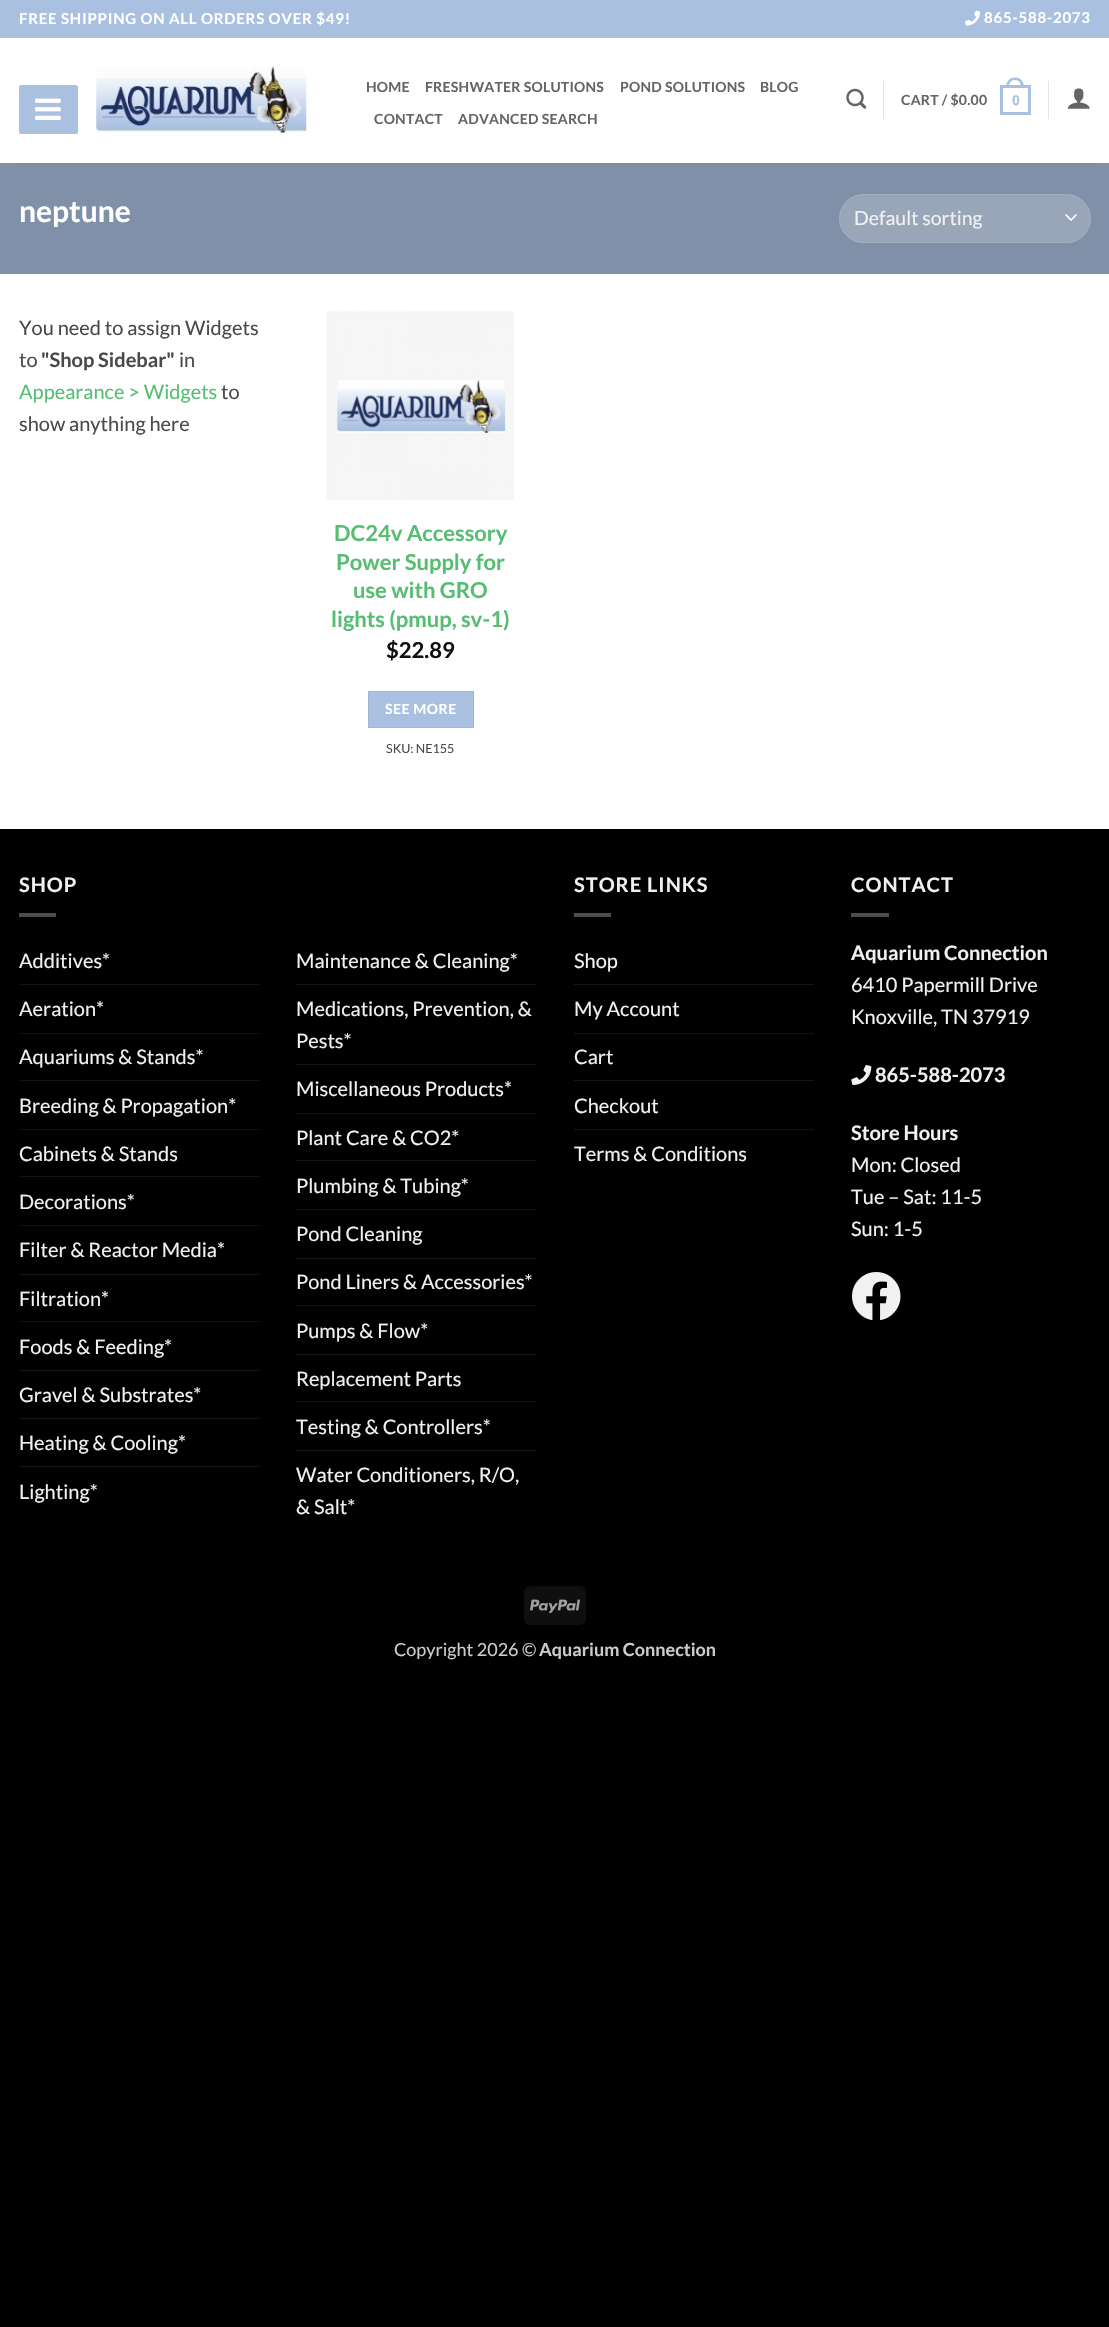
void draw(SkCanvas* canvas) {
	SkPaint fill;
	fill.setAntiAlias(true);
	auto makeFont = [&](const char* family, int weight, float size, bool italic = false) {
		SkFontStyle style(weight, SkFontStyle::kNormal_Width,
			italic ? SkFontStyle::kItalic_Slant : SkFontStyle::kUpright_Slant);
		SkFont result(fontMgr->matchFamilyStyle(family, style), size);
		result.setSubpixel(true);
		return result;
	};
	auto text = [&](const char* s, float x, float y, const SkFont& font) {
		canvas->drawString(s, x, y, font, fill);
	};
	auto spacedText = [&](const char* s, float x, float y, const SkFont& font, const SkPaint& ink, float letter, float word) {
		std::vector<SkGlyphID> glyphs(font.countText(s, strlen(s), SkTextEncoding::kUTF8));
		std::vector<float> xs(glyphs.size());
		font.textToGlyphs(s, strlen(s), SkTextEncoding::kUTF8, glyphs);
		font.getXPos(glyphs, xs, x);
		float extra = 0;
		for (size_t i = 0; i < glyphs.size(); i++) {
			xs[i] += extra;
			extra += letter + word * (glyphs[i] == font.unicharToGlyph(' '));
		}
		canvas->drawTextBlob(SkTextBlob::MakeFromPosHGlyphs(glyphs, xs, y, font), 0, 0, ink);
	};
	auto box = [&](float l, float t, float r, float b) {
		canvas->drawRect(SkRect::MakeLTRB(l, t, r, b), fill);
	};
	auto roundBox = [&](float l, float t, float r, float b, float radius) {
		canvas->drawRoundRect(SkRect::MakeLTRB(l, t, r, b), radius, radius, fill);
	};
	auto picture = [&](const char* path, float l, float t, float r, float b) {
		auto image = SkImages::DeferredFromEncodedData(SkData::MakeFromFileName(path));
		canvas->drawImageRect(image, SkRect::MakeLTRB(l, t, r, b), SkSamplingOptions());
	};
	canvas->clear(0xFF000000);
	fill.setColor(0xFFFFFFFF);
	box(0, 38, 1109, 829);
	fill.setColor(0xFFA9C0E0);
	box(0, 0, 1109, 38);
	picture("image0.png", 965, 10, 980, 26);
	roundBox(19, 85, 78, 134, 2.5f);
	picture("image1.png", 35, 98, 61, 120);
	picture("image2.png", 96, 66, 307, 133);
	picture("image3.png", 846, 88, 867, 109);
	fill.setColor(0xFFE6E6E6);
	box(883, 81, 884, 119);
	fill.setStyle(SkPaint::kStroke_Style);
	fill.setStrokeWidth(3);
	fill.setColor(0xFFA9C0E0);
	canvas->drawRect(SkRect::MakeLTRB(1001.5f, 86.5f, 1029.5f, 113.5f), fill);
	fill.setStyle(SkPaint::kFill_Style);
	canvas->drawPath(SkPathBuilder(SkPathFillType::kEvenOdd).moveTo(1015, 77.5f).cubicTo(1021, 77.5f, 1024, 82, 1024, 87.5f).lineTo(1006, 87.5f).cubicTo(1006, 82, 1009, 77.5f, 1015, 77.5f).close().moveTo(1015, 80).cubicTo(1019.5f, 80, 1021, 83.5f, 1021, 87.5f).lineTo(1009, 87.5f).cubicTo(1009, 83.5f, 1010.5f, 80, 1015, 80).close().detach(), fill);
	fill.setColor(0xFFE6E6E6);
	box(1048, 81, 1049, 119);
	picture("image4.png", 1067, 88, 1090, 109);
	fill.setColor(0xFF7F90A8);
	box(0, 163, 1109, 274);
	fill.setColor(0xFF7A899F);
	box(19, 163, 1091, 164);
	fill.setColor(0xFF99A6B9);
	roundBox(839, 194, 1091, 243, 24.5f);
	fill.setStyle(SkPaint::kStroke_Style);
	fill.setStrokeWidth(1.7f);
	fill.setStrokeCap(SkPaint::kRound_Cap);
	fill.setStrokeJoin(SkPaint::kRound_Join);
	fill.setColor(0xFFFFFFFF);
	canvas->drawPath(SkPathBuilder().moveTo(1066, 215).lineTo(1071, 220).lineTo(1076, 215).detach(), fill);
	fill.setStrokeWidth(1);
	fill.setStrokeCap(SkPaint::kButt_Cap);
	fill.setStrokeJoin(SkPaint::kMiter_Join);
	fill.setColor(0x17FFFFFF);
	canvas->drawRoundRect(SkRect::MakeLTRB(839.5f, 194.5f, 1090.5f, 242.5f), 24, 24, fill);
	picture("image5.png", 326, 311, 514, 500);
	fill.setStyle(SkPaint::kFill_Style);
	fill.setColor(0xFFA9C0E0);
	canvas->drawRect(SkRect::MakeLTRB(368.5f, 691.5f, 473.5f, 727.5f), fill);
	fill.setStyle(SkPaint::kStroke_Style);
	fill.setColor(0xFFA1B6D5);
	canvas->drawRect(SkRect::MakeLTRB(368.5f, 691.5f, 473.5f, 727.5f), fill);
	fill.setStyle(SkPaint::kFill_Style);
	fill.setColor(0xFF4D4D4D);
	box(19, 913, 56, 917);
	fill.setColor(0xFF141414);
	box(19, 984, 259, 985);
	box(19, 1033, 259, 1034);
	box(19, 1080, 259, 1081);
	box(19, 1129, 259, 1130);
	box(19, 1176, 259, 1177);
	box(19, 1225, 259, 1226);
	box(19, 1274, 259, 1275);
	box(19, 1321, 259, 1322);
	box(19, 1370, 259, 1371);
	box(19, 1418, 259, 1419);
	box(19, 1466, 259, 1467);
	box(296, 984, 536, 985);
	box(296, 1064, 536, 1065);
	box(296, 1113, 536, 1114);
	box(296, 1160, 536, 1161);
	box(296, 1209, 536, 1210);
	box(296, 1258, 536, 1259);
	box(296, 1305, 536, 1306);
	box(296, 1354, 536, 1355);
	box(296, 1401, 536, 1402);
	box(296, 1450, 536, 1451);
	fill.setColor(0xFF4D4D4D);
	box(574, 913, 611, 917);
	fill.setColor(0xFF141414);
	box(574, 984, 814, 985);
	box(574, 1033, 814, 1034);
	box(574, 1080, 814, 1081);
	box(574, 1129, 814, 1130);
	fill.setColor(0xFF4D4D4D);
	box(851, 913, 889, 917);
	picture("image6.png", 851, 1065, 872, 1085);
	picture("image7.png", 852, 1272, 901, 1321);
	fill.setColor(0xFF0F0F0F);
	roundBox(524, 1586, 586, 1625, 6);
	picture("image8.png", 530, 1599, 580, 1613);
	auto font1 = makeFont("Lato", 700, 15);
	fill.setColor(0xFFFFFFFF);
	spacedText("FREE SHIPPING ON ALL ORDERS OVER $49!", 19, 24, font1, fill, 0.75f, 0);
	spacedText("865-588-2073", 984, 23, font1, fill, 0.75f, 0);
	auto font2 = makeFont("Lato", 700, 14);
	fill.setColor(0xFF656565);
	spacedText("HOME", 366, 92, font2, fill, 0.25f, 0);
	spacedText("FRESHWATER SOLUTIONS", 425, 92, font2, fill, 0.25f, 0);
	spacedText("POND SOLUTIONS", 620, 92, font2, fill, 0.25f, 0);
	spacedText("BLOG", 760, 92, font2, fill, 0.25f, 0);
	spacedText("CONTACT", 374, 124, font2, fill, 0.25f, 0);
	spacedText("ADVANCED SEARCH", 458, 124, font2, fill, 0.25f, 0);
	spacedText("CART / $0.00", 901, 105, font2, fill, 0.25f, 0);
	auto font3 = makeFont("Liberation Sans", 700, 14);
	fill.setColor(0xFFA9C0E0);
	spacedText("0", 1012, 105, font3, fill, 0.25f, 0);
	auto font4 = makeFont("Lato", 700, 30);
	fill.setColor(0xFFFFFFFF);
	text("neptune", 19, 222, font4);
	auto font5 = makeFont("Lato", 400, 19.5f);
	fill.setColor(0xFFF1F1F1);
	text("Default sorting", 854, 225, font5);
	auto font6 = makeFont("Lato", 400, 20);
	fill.setColor(0xFF4A4A4A);
	text("You need to assign Widgets", 19, 335, font6);
	text("to", 19, 367, font6);
	auto font7 = makeFont("Lato", 700, 20);
	text("\"Shop Sidebar\"", 41, 367, font7);
	text("in", 179, 367, font6);
	fill.setColor(0xFF56BD72);
	text("Appearance > Widgets", 19, 399, font6);
	fill.setColor(0xFF4A4A4A);
	text("to", 221, 399, font6);
	text("show anything here", 19, 431, font6);
	auto font8 = makeFont("Lato", 700, 22);
	fill.setColor(0xFF56BD72);
	text("DC24v Accessory", 334, 541, font8);
	text("Power Supply for", 336, 570, font8);
	text("use with GRO", 353, 598, font8);
	text("lights (pmup, sv-1)", 331, 627, font8);
	fill.setColor(0xFF111111);
	text("$22.89", 386, 658, font8);
	fill.setColor(0xFFFFFFFF);
	spacedText("SEE MORE", 385, 714, font2, fill, 0.5f, 0);
	auto font9 = makeFont("Lato", 400, 12.5f);
	fill.setColor(0xFF4A4A4A);
	text("SKU: NE155", 386, 753, font9);
	fill.setColor(0xFFF1F1F1);
	spacedText("SHOP", 19, 892, font7, fill, 1, 0);
	text("Additives*", 19, 968, font6);
	text("Aeration*", 19, 1016, font6);
	text("Aquariums & Stands*", 19, 1064, font6);
	text("Breeding & Propagation*", 19, 1113, font6);
	text("Cabinets & Stands", 19, 1161, font6);
	text("Decorations*", 19, 1209, font6);
	text("Filter & Reactor Media*", 19, 1257, font6);
	text("Filtration*", 19, 1306, font6);
	text("Foods & Feeding*", 19, 1354, font6);
	text("Gravel & Substrates*", 19, 1402, font6);
	text("Heating & Cooling*", 19, 1450, font6);
	text("Lighting*", 19, 1499, font6);
	text("Maintenance & Cleaning*", 296, 968, font6);
	text("Medications, Prevention, &", 296, 1016, font6);
	text("Pests*", 296, 1048, font6);
	text("Miscellaneous Products*", 296, 1096, font6);
	text("Plant Care & CO2*", 296, 1145, font6);
	text("Plumbing & Tubing*", 296, 1193, font6);
	text("Pond Cleaning", 296, 1241, font6);
	text("Pond Liners & Accessories*", 296, 1289, font6);
	text("Pumps & Flow*", 296, 1338, font6);
	text("Replacement Parts", 296, 1386, font6);
	text("Testing & Controllers*", 296, 1434, font6);
	text("Water Conditioners, R/O,", 296, 1482, font6);
	text("& Salt*", 296, 1514, font6);
	spacedText("STORE LINKS", 574, 892, font7, fill, 1, 0);
	text("Shop", 574, 968, font6);
	text("My Account", 574, 1016, font6);
	text("Cart", 574, 1064, font6);
	text("Checkout", 574, 1113, font6);
	text("Terms & Conditions", 574, 1161, font6);
	spacedText("CONTACT", 851, 892, font7, fill, 1, 0);
	text("Aquarium Connection", 851, 960, font7);
	text("6410 Papermill Drive", 851, 992, font6);
	text("Knoxville, TN 37919", 851, 1024, font6);
	text("865-588-2073", 875, 1082, font7);
	text("Store Hours", 851, 1140, font7);
	text("Mon: Closed", 851, 1172, font6);
	text("Tue – Sat: 11-5", 851, 1204, font6);
	text("Sun: 1-5", 851, 1236, font6);
	auto font10 = makeFont("Lato", 400, 18);
	fill.setColor(0xFFCCCCCC);
	text("Copyright 2026 ©", 394, 1656, font10);
	auto font11 = makeFont("Lato", 700, 18);
	text("Aquarium Connection", 539, 1656, font11);
}
